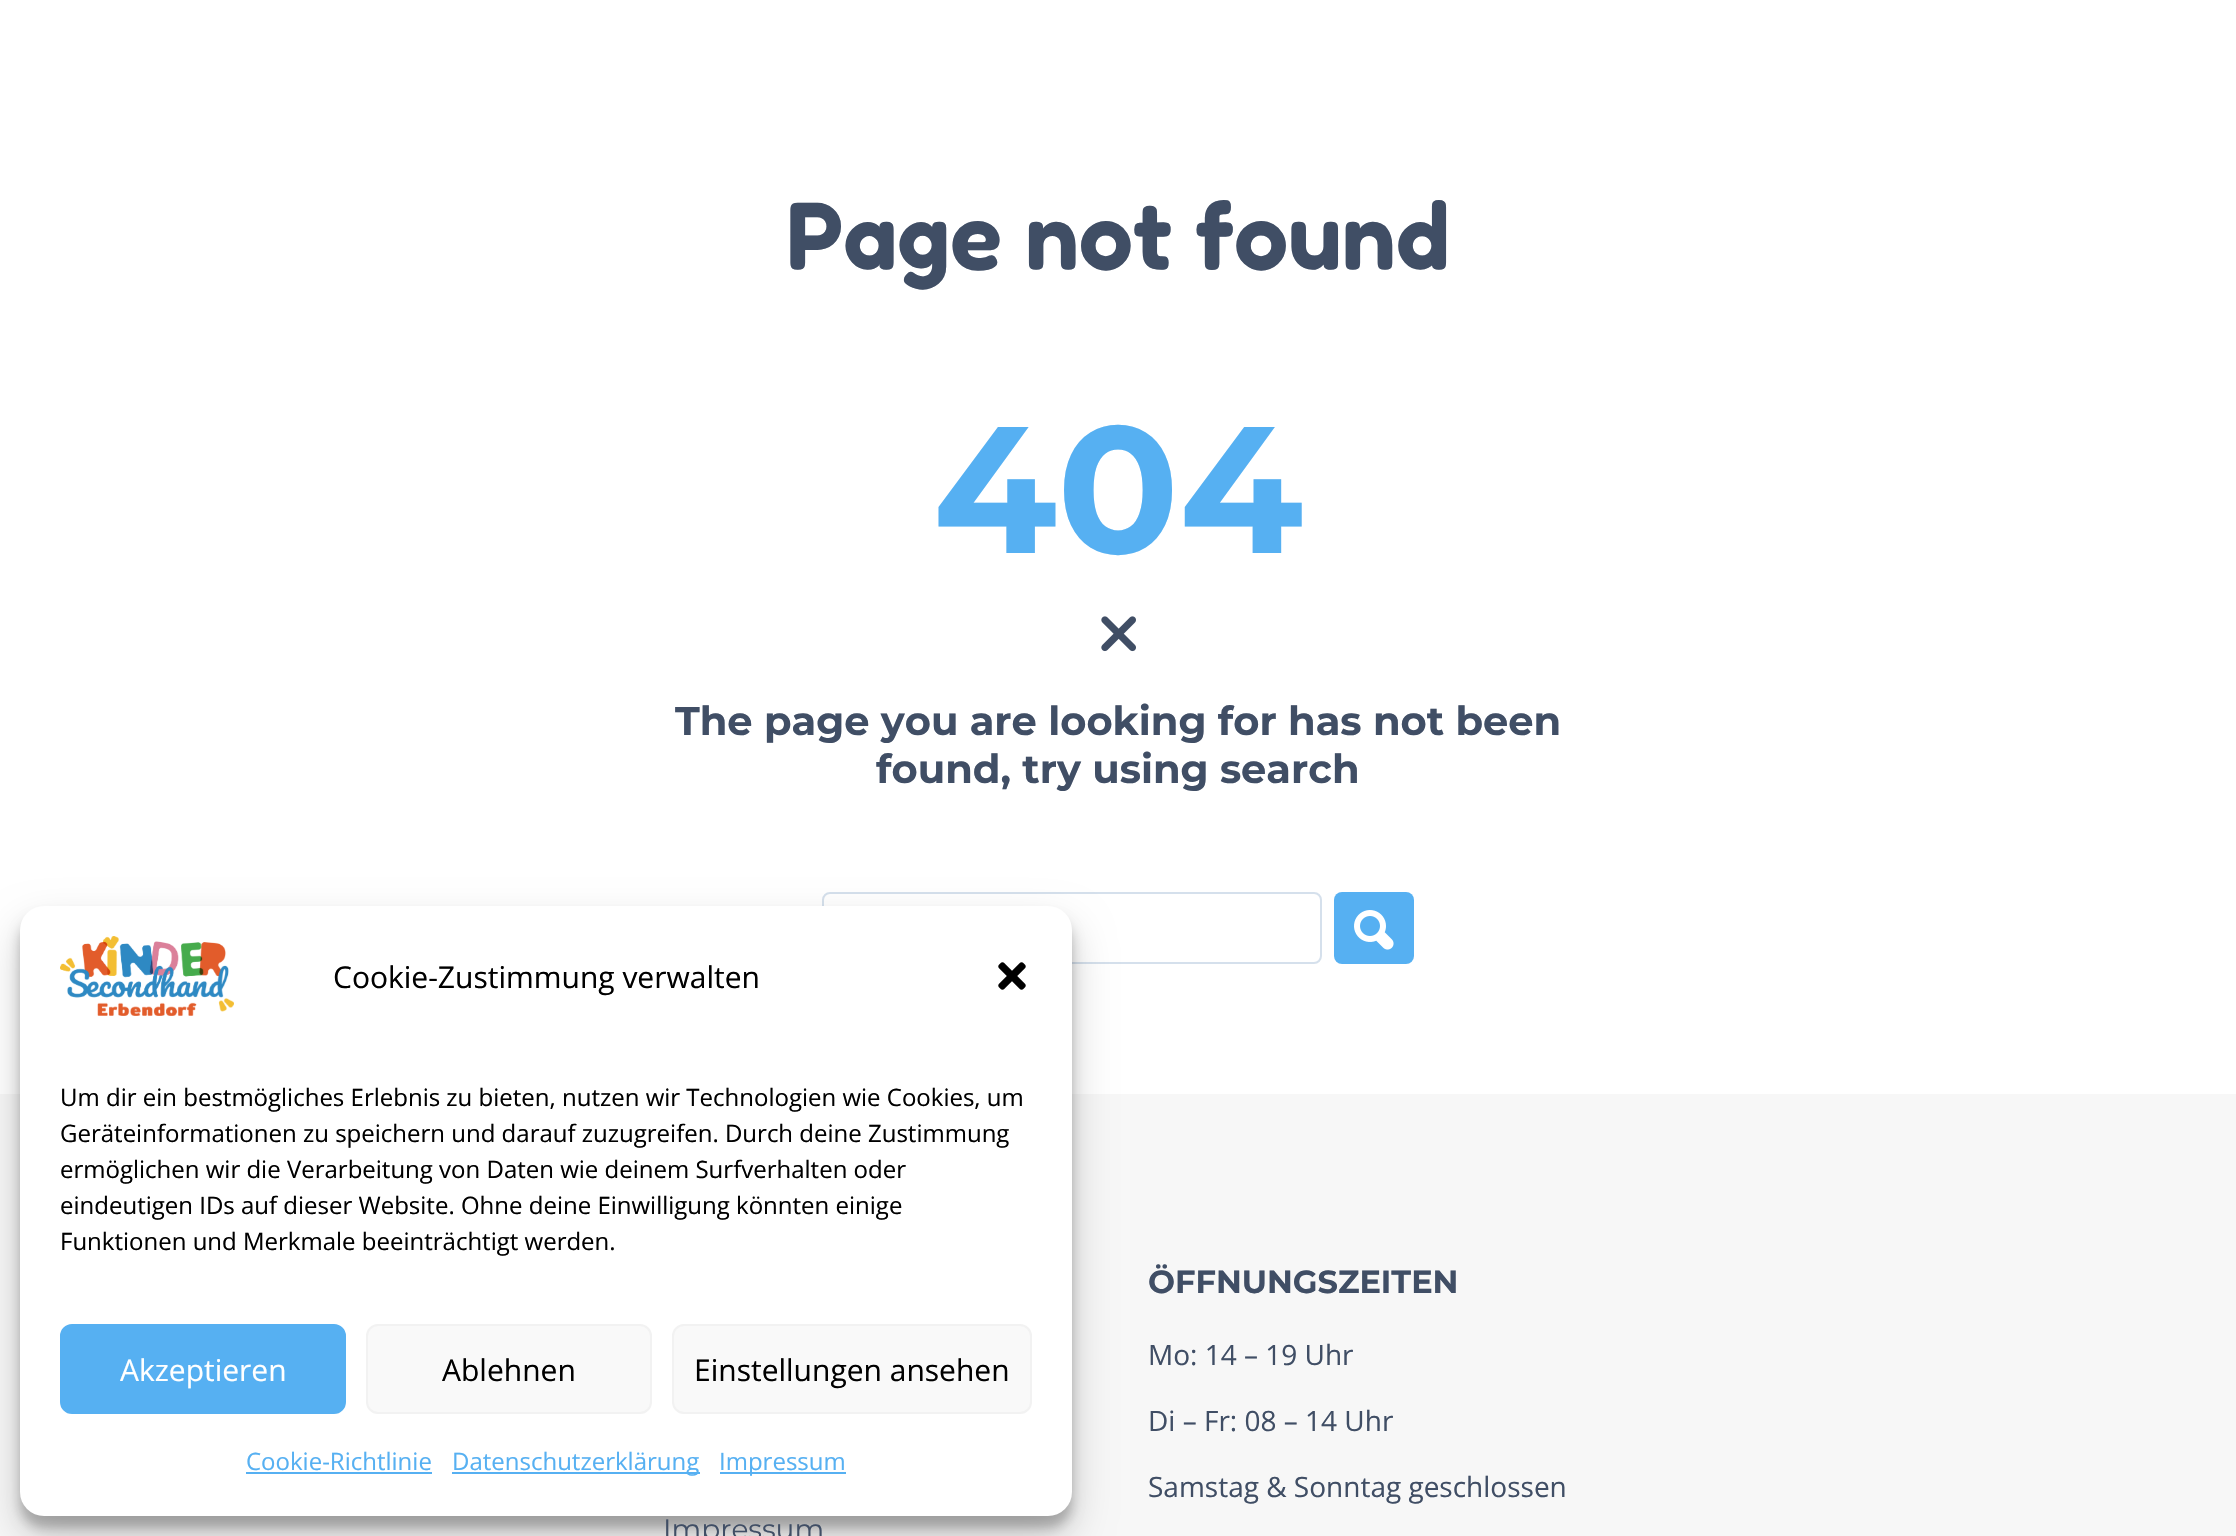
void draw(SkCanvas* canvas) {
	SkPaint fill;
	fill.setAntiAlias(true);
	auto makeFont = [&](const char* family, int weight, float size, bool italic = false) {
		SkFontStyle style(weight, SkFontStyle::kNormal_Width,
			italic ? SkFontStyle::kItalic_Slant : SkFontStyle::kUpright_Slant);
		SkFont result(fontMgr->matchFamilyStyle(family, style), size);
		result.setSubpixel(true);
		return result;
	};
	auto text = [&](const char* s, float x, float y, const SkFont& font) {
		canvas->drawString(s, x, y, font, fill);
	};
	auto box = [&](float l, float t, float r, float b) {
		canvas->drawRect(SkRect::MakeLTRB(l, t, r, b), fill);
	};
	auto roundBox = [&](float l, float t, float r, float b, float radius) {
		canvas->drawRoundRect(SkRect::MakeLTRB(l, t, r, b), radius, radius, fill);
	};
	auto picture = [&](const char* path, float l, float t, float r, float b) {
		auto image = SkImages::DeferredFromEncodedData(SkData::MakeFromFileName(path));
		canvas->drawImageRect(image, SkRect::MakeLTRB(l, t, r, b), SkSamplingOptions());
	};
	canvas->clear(0xFFFFFFFF);
	fill.setStyle(SkPaint::kStroke_Style);
	fill.setStrokeWidth(2);
	fill.setColor(0xFFD5E0EC);
	canvas->drawRoundRect(SkRect::MakeLTRB(823, 893, 1321, 963), 7, 7, fill);
	fill.setStyle(SkPaint::kFill_Style);
	fill.setColor(0xFFF7F7F7);
	box(0, 1094, 2236, 1536);
	fill.setColor(0x3B000000);
	fill.setMaskFilter(SkMaskFilter::MakeBlur(kNormal_SkBlurStyle, 6));
	canvas->drawRoundRect(SkRect::MakeLTRB(20, 918, 1072, 1528), 24, 24, fill);
	fill.setMaskFilter(nullptr);
	fill.setColor(0x30000000);
	fill.setMaskFilter(SkMaskFilter::MakeBlur(kNormal_SkBlurStyle, 20));
	canvas->drawRoundRect(SkRect::MakeLTRB(20, 926, 1072, 1536), 24, 24, fill);
	fill.setMaskFilter(nullptr);
	fill.setColor(0xFFFFFFFF);
	roundBox(20, 906, 1072, 1516, 24);
	picture("image0.png", 60, 936, 234, 1016);
	picture("image1.png", 998, 962, 1026, 990);
	fill.setColor(0xFF56B0F2);
	canvas->drawRoundRect(SkRect::MakeLTRB(61, 1325, 345, 1413), 11, 11, fill);
	fill.setStyle(SkPaint::kStroke_Style);
	canvas->drawRoundRect(SkRect::MakeLTRB(61, 1325, 345, 1413), 11, 11, fill);
	fill.setStyle(SkPaint::kFill_Style);
	fill.setColor(0xFFF9F9F9);
	canvas->drawRoundRect(SkRect::MakeLTRB(367, 1325, 651, 1413), 11, 11, fill);
	fill.setStyle(SkPaint::kStroke_Style);
	fill.setColor(0xFFF2F2F2);
	canvas->drawRoundRect(SkRect::MakeLTRB(367, 1325, 651, 1413), 11, 11, fill);
	fill.setStyle(SkPaint::kFill_Style);
	fill.setColor(0xFFF9F9F9);
	canvas->drawRoundRect(SkRect::MakeLTRB(673, 1325, 1031, 1413), 11, 11, fill);
	fill.setStyle(SkPaint::kStroke_Style);
	fill.setColor(0xFFF2F2F2);
	canvas->drawRoundRect(SkRect::MakeLTRB(673, 1325, 1031, 1413), 11, 11, fill);
	fill.setStyle(SkPaint::kFill_Style);
	fill.setColor(0xFF56B0F2);
	box(246, 1472, 432, 1474);
	box(452, 1472, 700, 1474);
	box(720, 1472, 846, 1474);
	picture("image2.png", 1101, 616, 1136, 652);
	roundBox(1334, 892, 1414, 964, 8);
	picture("image3.png", 1354, 910, 1394, 950);
	auto font1 = makeFont("Open Sans", 400, 30);
	fill.setColor(0xFF000000);
	text("Cookie-Zustimmung verwalten", 333, 988, font1);
	auto font2 = makeFont("Open Sans", 400, 24);
	text("Um dir ein bestmögliches Erlebnis zu bieten, nutzen wir Technologien wie Cookies, um", 60, 1106, font2);
	text("Geräteinformationen zu speichern und darauf zuzugreifen. Durch deine Zustimmung", 60, 1142, font2);
	text("ermöglichen wir die Verarbeitung von Daten wie deinem Surfverhalten oder", 60, 1178, font2);
	text("eindeutigen IDs auf dieser Website. Ohne deine Einwilligung könnten einige", 60, 1214, font2);
	text("Funktionen und Merkmale beeinträchtigt werden.", 60, 1250, font2);
	fill.setColor(0xFFFFFFFF);
	text("Akzeptieren", 120, 1381, font1);
	fill.setColor(0xFF000000);
	text("Ablehnen", 442, 1381, font1);
	text("Einstellungen ansehen", 694, 1381, font1);
	fill.setColor(0xFF56B0F2);
	text("Cookie-Richtlinie", 246, 1470, font2);
	text("Datenschutzerklärung", 452, 1470, font2);
	text("Impressum", 719, 1470, font2);
	auto font3 = makeFont("Fredoka", 600, 96);
	fill.setColor(0xFF404E65);
	text("Page not found", 786, 269, font3);
	auto font4 = makeFont("Montserrat", 700, 180);
	fill.setColor(0xFF56B0F2);
	text("404", 933, 553, font4);
	auto font5 = makeFont("Montserrat", 700, 40);
	fill.setColor(0xFF404E65);
	text("The page you are looking for has not been", 675, 735, font5);
	text("found, try using search", 876, 783, font5);
	auto font6 = makeFont("Montserrat", 700, 32);
	text("ÖFFNUNGSZEITEN", 1148, 1293, font6);
	auto font7 = makeFont("Open Sans", 400, 28);
	text("Mo: 14 – 19 Uhr", 1148, 1365, font7);
	text("Di – Fr: 08 – 14 Uhr", 1148, 1431, font7);
	text("Samstag & Sonntag geschlossen", 1148, 1497, font7);
	auto font8 = makeFont("Montserrat", 400, 28);
	text("Impressum", 663, 1539, font8);
}
